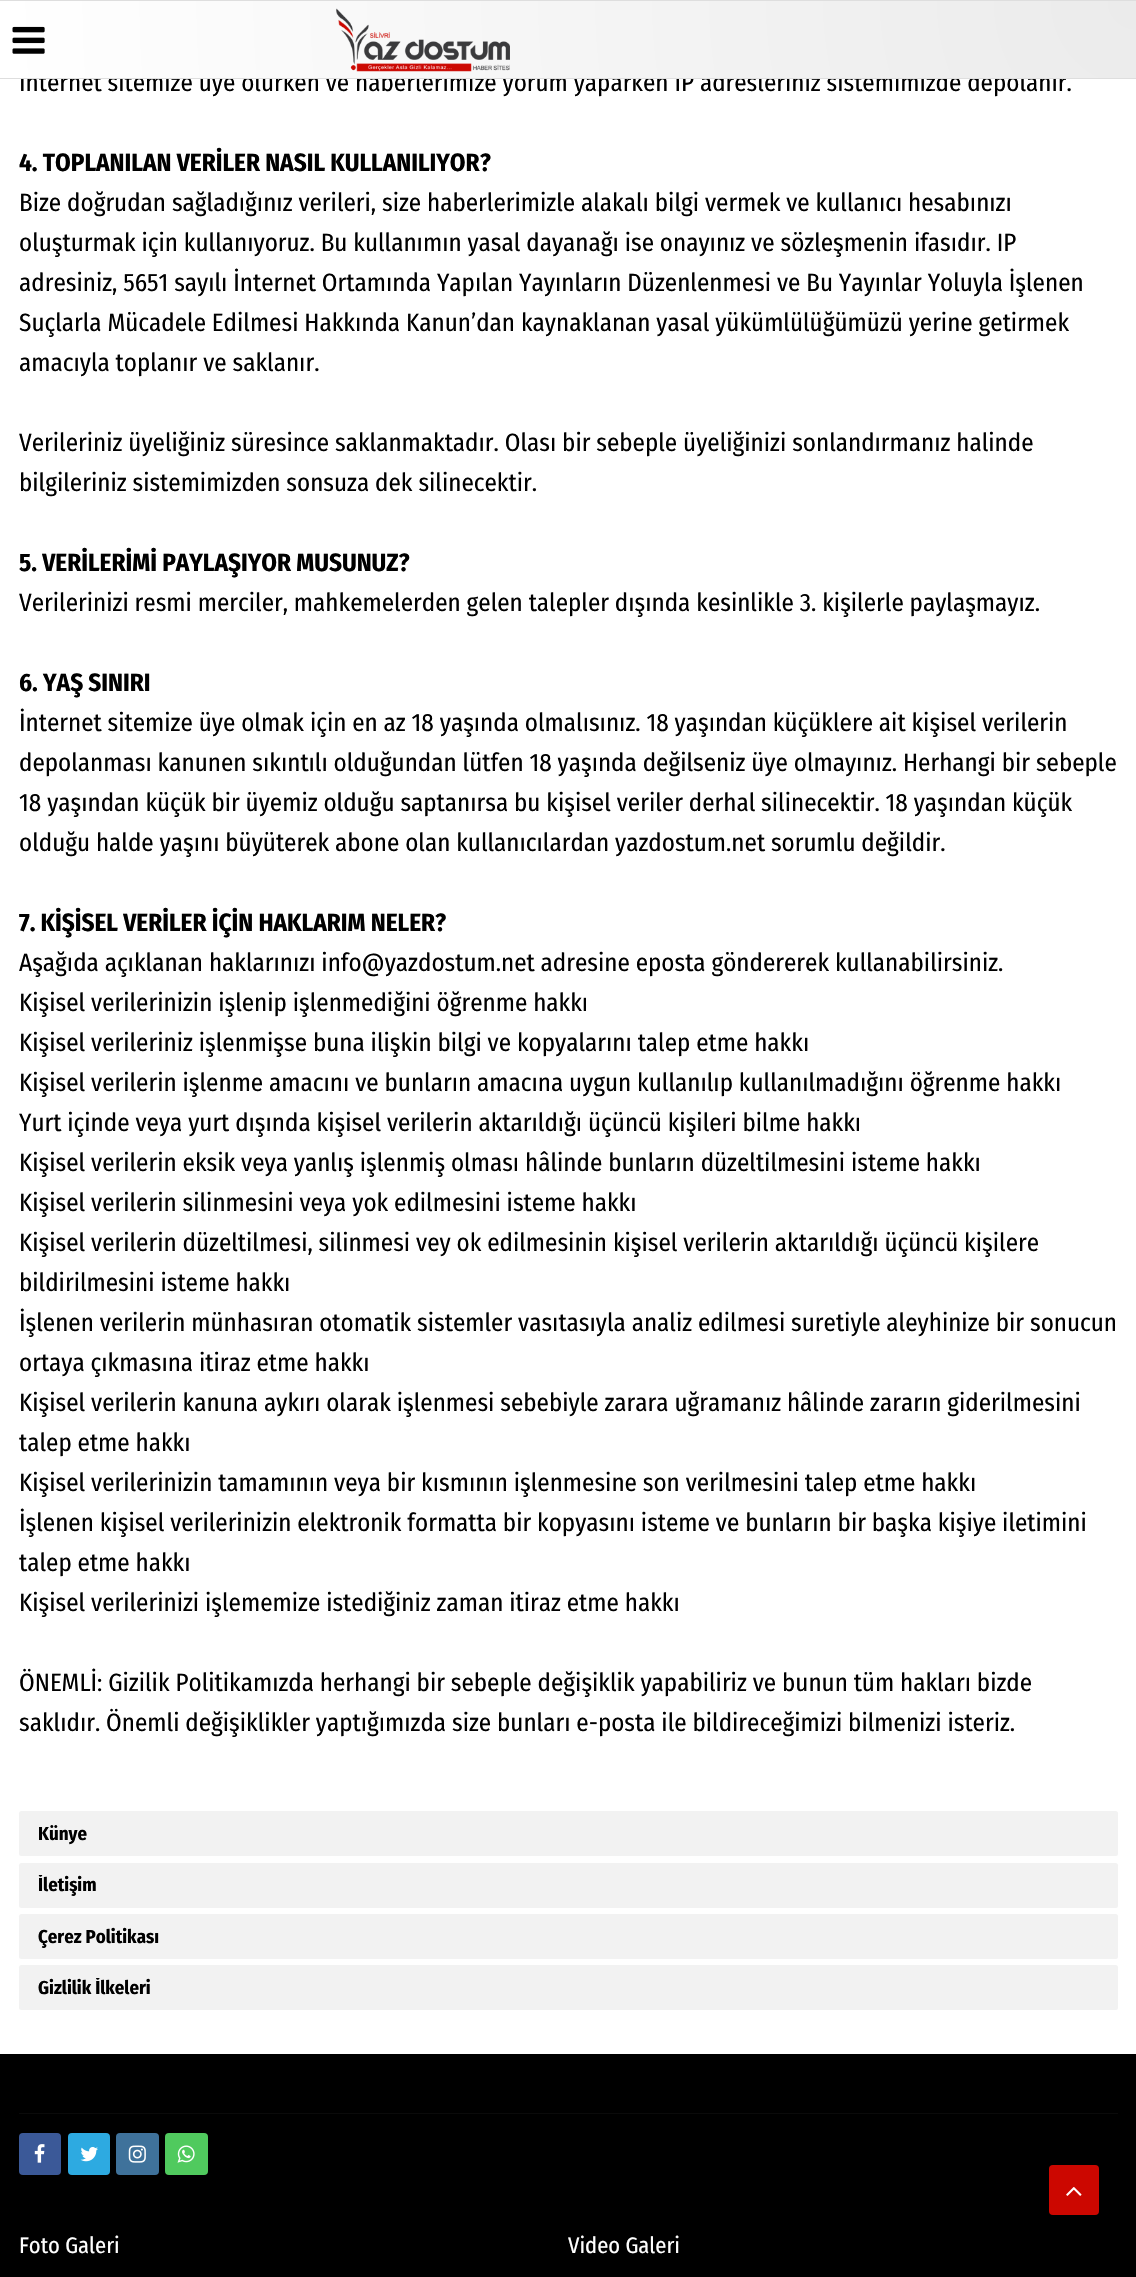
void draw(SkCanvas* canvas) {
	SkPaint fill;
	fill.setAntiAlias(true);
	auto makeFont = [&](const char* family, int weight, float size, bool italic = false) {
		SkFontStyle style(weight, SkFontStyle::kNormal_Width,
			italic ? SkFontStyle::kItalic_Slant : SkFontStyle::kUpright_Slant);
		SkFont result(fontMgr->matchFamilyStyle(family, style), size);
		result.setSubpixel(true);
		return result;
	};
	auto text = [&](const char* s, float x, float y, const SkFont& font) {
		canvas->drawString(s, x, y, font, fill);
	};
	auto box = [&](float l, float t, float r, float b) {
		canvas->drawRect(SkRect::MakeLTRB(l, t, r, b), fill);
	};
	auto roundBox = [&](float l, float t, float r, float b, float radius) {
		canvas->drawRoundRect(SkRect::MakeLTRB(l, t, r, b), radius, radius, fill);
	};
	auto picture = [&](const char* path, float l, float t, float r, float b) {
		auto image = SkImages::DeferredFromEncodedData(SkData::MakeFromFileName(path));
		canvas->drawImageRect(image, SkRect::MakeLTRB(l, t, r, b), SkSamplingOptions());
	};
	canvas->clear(0xFFFFFFFF);
	fill.setColor(0xFFDEDEDE);
	box(0, 0, 1136, 1);
	fill.setColor(0xFFF2F2F2);
	roundBox(19, 1811, 1118, 1856, 2.5f);
	roundBox(19, 1863, 1118, 1908, 2.5f);
	roundBox(19, 1914, 1118, 1959, 2.5f);
	roundBox(19, 1965, 1118, 2010, 2.5f);
	fill.setColor(0xFF000000);
	box(0, 2054, 1136, 2277);
	fill.setColor(0xFF0A0A0A);
	box(19, 2113, 1118, 2114);
	fill.setColor(0xFF3B5998);
	roundBox(19, 2133, 61, 2175, 4);
	picture("image2.png", 34, 2144, 45, 2163);
	fill.setColor(0xFF2DAAE1);
	roundBox(68, 2133, 110, 2175, 4);
	picture("image3.png", 80, 2147, 98, 2162);
	fill.setColor(0xFF3F729B);
	roundBox(116, 2133, 159, 2175, 4);
	picture("image4.png", 128, 2145, 146, 2163);
	fill.setColor(0xFF50CA5E);
	roundBox(165, 2133, 208, 2175, 4);
	picture("image5.png", 177, 2145, 195, 2163);
	fill.setColor(0xFFCC0700);
	roundBox(1049, 2165, 1099, 2215, 4);
	picture("image6.png", 1066, 2187, 1082, 2196);
	auto font1 = makeFont("Fira Sans Condensed", 400, 25);
	fill.setColor(0xFF000000);
	text("İnternet sitemize üye olurken ve haberlerimize yorum yaparken IP adresleriniz sistemimizde depolanır.", 19, 91, font1);
	{
		const SkColor colors[] = {0xFFEBEBEB, 0xFFFFFFFF};
		const float stops[] = {0, 1};
		fill.setShader(SkGradientShader::MakeRadial({1136, 1.2f}, 1139, colors, stops, 2, SkTileMode::kClamp));
		fill.setAlpha(255);
	}
	box(20, 1, 1136, 78);
	picture("image1.png", 336, 8, 510, 72);
	picture("image0.png", 12, 26, 45, 54);
	fill.setShader(nullptr);
	fill.setColor(0xFFDEDEDE);
	box(0, 78, 1136, 79);
	auto font2 = makeFont("Fira Sans Condensed", 700, 25);
	fill.setColor(0xFF000000);
	text("4. TOPLANILAN VERİLER NASIL KULLANILIYOR?", 19, 171, font2);
	text("Bize doğrudan sağladığınız verileri, size haberlerimizle alakalı bilgi vermek ve kullanıcı hesabınızı", 19, 211, font1);
	text("oluşturmak için kullanıyoruz. Bu kullanımın yasal dayanağı ise onayınız ve sözleşmenin ifasıdır. IP", 19, 251, font1);
	text("adresiniz, 5651 sayılı İnternet Ortamında Yapılan Yayınların Düzenlenmesi ve Bu Yayınlar Yoluyla İşlenen", 19, 291, font1);
	text("Suçlarla Mücadele Edilmesi Hakkında Kanun’dan kaynaklanan yasal yükümlülüğümüzü yerine getirmek", 19, 331, font1);
	text("amacıyla toplanır ve saklanır.", 19, 371, font1);
	text("Verileriniz üyeliğiniz süresince saklanmaktadır. Olası bir sebeple üyeliğinizi sonlandırmanız halinde", 19, 451, font1);
	text("bilgileriniz sistemimizden sonsuza dek silinecektir.", 19, 491, font1);
	text("5. VERİLERİMİ PAYLAŞIYOR MUSUNUZ?", 19, 571, font2);
	text("Verilerinizi resmi merciler, mahkemelerden gelen talepler dışında kesinlikle 3. kişilerle paylaşmayız.", 19, 611, font1);
	text("6. YAŞ SINIRI", 19, 691, font2);
	text("İnternet sitemize üye olmak için en az 18 yaşında olmalısınız. 18 yaşından küçüklere ait kişisel verilerin", 19, 731, font1);
	text("depolanması kanunen sıkıntılı olduğundan lütfen 18 yaşında değilseniz üye olmayınız. Herhangi bir sebeple", 19, 771, font1);
	text("18 yaşından küçük bir üyemiz olduğu saptanırsa bu kişisel veriler derhal silinecektir. 18 yaşından küçük", 19, 811, font1);
	text("olduğu halde yaşını büyüterek abone olan kullanıcılardan yazdostum.net sorumlu değildir.", 19, 851, font1);
	text("7. KİŞİSEL VERİLER İÇİN HAKLARIM NELER?", 19, 931, font2);
	text("Aşağıda açıklanan haklarınızı info@yazdostum.net adresine eposta göndererek kullanabilirsiniz.", 19, 971, font1);
	text("Kişisel verilerinizin işlenip işlenmediğini öğrenme hakkı", 19, 1011, font1);
	text("Kişisel verileriniz işlenmişse buna ilişkin bilgi ve kopyalarını talep etme hakkı", 19, 1051, font1);
	text("Kişisel verilerin işlenme amacını ve bunların amacına uygun kullanılıp kullanılmadığını öğrenme hakkı", 19, 1091, font1);
	text("Yurt içinde veya yurt dışında kişisel verilerin aktarıldığı üçüncü kişileri bilme hakkı", 19, 1131, font1);
	text("Kişisel verilerin eksik veya yanlış işlenmiş olması hâlinde bunların düzeltilmesini isteme hakkı", 19, 1171, font1);
	text("Kişisel verilerin silinmesini veya yok edilmesini isteme hakkı", 19, 1211, font1);
	text("Kişisel verilerin düzeltilmesi, silinmesi vey ok edilmesinin kişisel verilerin aktarıldığı üçüncü kişilere", 19, 1251, font1);
	text("bildirilmesini isteme hakkı", 19, 1291, font1);
	text("İşlenen verilerin münhasıran otomatik sistemler vasıtasıyla analiz edilmesi suretiyle aleyhinize bir sonucun", 19, 1331, font1);
	text("ortaya çıkmasına itiraz etme hakkı", 19, 1371, font1);
	text("Kişisel verilerin kanuna aykırı olarak işlenmesi sebebiyle zarara uğramanız hâlinde zararın giderilmesini", 19, 1411, font1);
	text("talep etme hakkı", 19, 1451, font1);
	text("Kişisel verilerinizin tamamının veya bir kısmının işlenmesine son verilmesini talep etme hakkı", 19, 1491, font1);
	text("İşlenen kişisel verilerinizin elektronik formatta bir kopyasını isteme ve bunların bir başka kişiye iletimini", 19, 1531, font1);
	text("talep etme hakkı", 19, 1571, font1);
	text("Kişisel verilerinizi işlememize istediğiniz zaman itiraz etme hakkı", 19, 1611, font1);
	text("ÖNEMLİ: Gizilik Politikamızda herhangi bir sebeple değişiklik yapabiliriz ve bunun tüm hakları bizde", 19, 1691, font1);
	text("saklıdır. Önemli değişiklikler yaptığımızda size bunları e-posta ile bildireceğimizi bilmenizi isteriz.", 19, 1731, font1);
	auto font3 = makeFont("Fira Sans Condensed", 700, 18.75f);
	text("Künye", 38, 1840, font3);
	canvas->save();
	canvas->clipRect(SkRect::MakeLTRB(19, 1875, 1118, 1896));
	text("İletişim", 38, 1891, font3);
	canvas->restore();
	text("Çerez Politikası", 38, 1943, font3);
	canvas->save();
	canvas->clipRect(SkRect::MakeLTRB(19, 1978, 1118, 1999));
	text("Gizlilik İlkeleri", 38, 1994, font3);
	canvas->restore();
	auto font4 = makeFont("Fira Sans Condensed", 400, 22.5f);
	fill.setColor(0xFFFFFFFF);
	text("Foto Galeri", 19, 2253, font4);
	text("Video Galeri", 568, 2253, font4);
}
